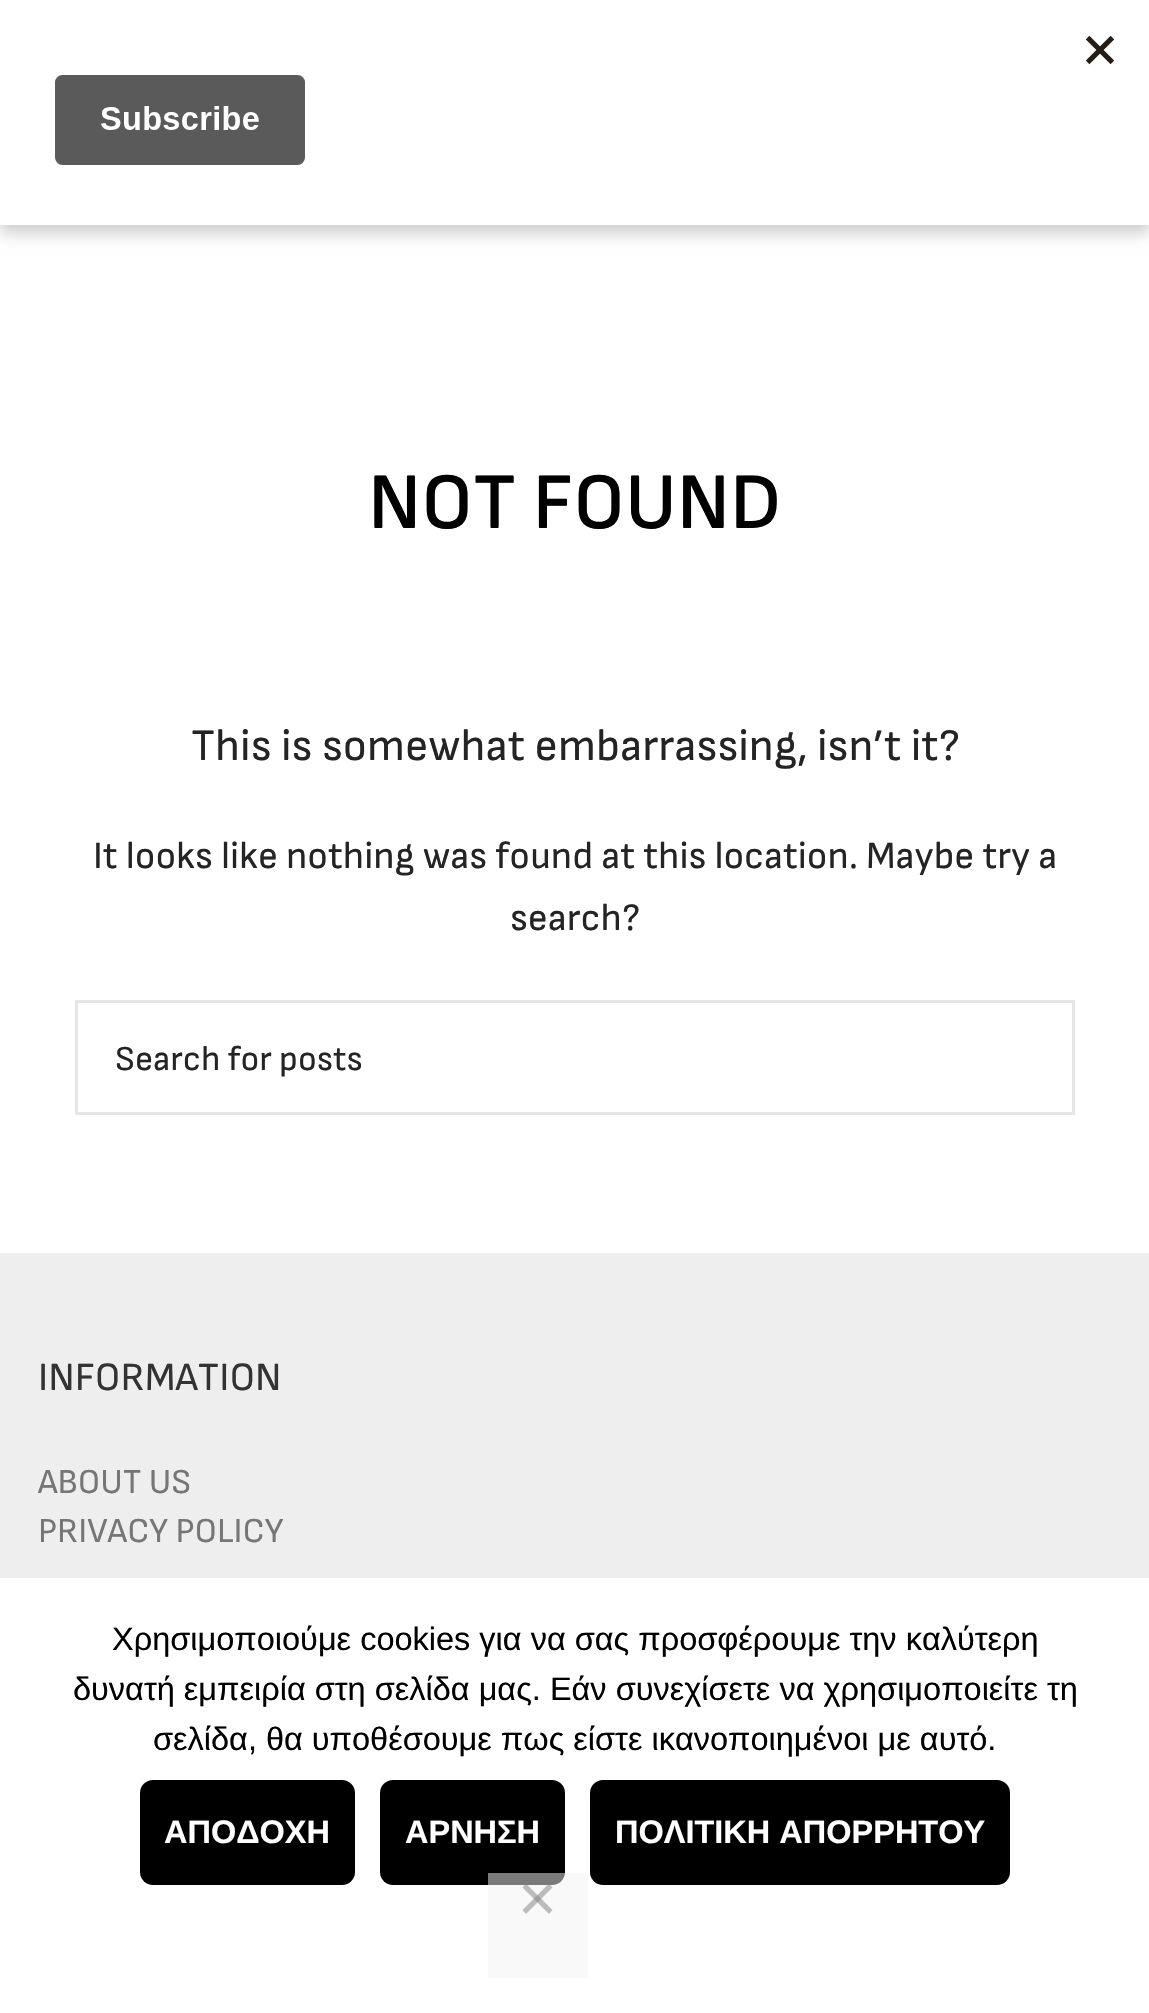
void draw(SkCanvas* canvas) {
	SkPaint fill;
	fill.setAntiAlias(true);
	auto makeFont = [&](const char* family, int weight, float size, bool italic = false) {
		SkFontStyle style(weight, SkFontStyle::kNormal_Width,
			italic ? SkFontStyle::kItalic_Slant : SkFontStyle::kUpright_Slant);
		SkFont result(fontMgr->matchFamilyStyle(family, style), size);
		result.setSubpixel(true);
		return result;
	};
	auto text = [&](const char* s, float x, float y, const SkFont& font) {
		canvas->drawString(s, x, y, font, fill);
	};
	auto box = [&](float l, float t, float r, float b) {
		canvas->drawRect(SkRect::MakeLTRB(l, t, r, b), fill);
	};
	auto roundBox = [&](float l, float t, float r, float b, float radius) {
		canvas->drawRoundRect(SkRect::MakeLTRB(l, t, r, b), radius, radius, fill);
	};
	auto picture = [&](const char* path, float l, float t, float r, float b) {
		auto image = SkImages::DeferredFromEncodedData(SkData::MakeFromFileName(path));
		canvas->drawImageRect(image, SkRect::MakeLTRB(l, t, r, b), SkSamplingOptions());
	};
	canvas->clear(0xFFFFFFFF);
	fill.setColor(0x33000000);
	fill.setMaskFilter(SkMaskFilter::MakeBlur(kNormal_SkBlurStyle, 7.5f));
	canvas->drawRect(SkRect::MakeLTRB(0, 8, 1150, 233), fill);
	fill.setMaskFilter(nullptr);
	fill.setColor(0xFFFFFFFF);
	box(0, 0, 1149, 225);
	picture("image0.png", 55, 35, 1114, 165);
	fill.setStyle(SkPaint::kStroke_Style);
	fill.setStrokeWidth(3);
	fill.setColor(0xFFE6E6E6);
	canvas->drawRect(SkRect::MakeLTRB(76.5f, 1001.5f, 1073.5f, 1113.5f), fill);
	fill.setStyle(SkPaint::kFill_Style);
	fill.setColor(0xFFEEEEEE);
	box(0, 1253, 1149, 1578);
	fill.setColor(0xFF000000);
	roundBox(140, 1780, 355, 1885, 13);
	roundBox(380, 1780, 565, 1885, 13);
	roundBox(590, 1780, 1010, 1885, 13);
	fill.setColor(0x80F3F3F3);
	box(488, 1873, 588, 1978);
	fill.setColor(0x80808080);
	canvas->drawPath(SkPathBuilder().moveTo(549, 1883.5f).lineTo(552.5f, 1887.5f).lineTo(526, 1914).lineTo(522.5f, 1910).close().detach(), fill);
	canvas->drawPath(SkPathBuilder().moveTo(522.5f, 1887.5f).lineTo(526, 1883.5f).lineTo(552.5f, 1910).lineTo(549, 1914).close().detach(), fill);
	auto font1 = makeFont("Sofia Sans", 600, 80);
	fill.setColor(0xFF000000);
	text("NOT FOUND", 368, 528, font1);
	auto font2 = makeFont("Sofia Sans", 400, 45);
	fill.setColor(0xFF242424);
	text("This is somewhat embarrassing, isn’t it?", 191, 760, font2);
	auto font3 = makeFont("Sofia Sans", 400, 38.5f);
	text("It looks like nothing was found at this location. Maybe try a", 93, 868, font3);
	text("search?", 510, 930, font3);
	auto font4 = makeFont("Sofia Sans", 400, 35);
	text("Search for posts", 115, 1070, font4);
	auto font5 = makeFont("Sofia Sans", 400, 40);
	fill.setColor(0xFF333333);
	text("INFORMATION", 38, 1390, font5);
	fill.setColor(0xFF767676);
	text("ABOUT US", 38, 1493, font4);
	text("PRIVACY POLICY", 38, 1542, font4);
	auto font6 = makeFont("Liberation Sans", 400, 32.5f);
	fill.setColor(0xFF000000);
	text("Χρησιμοποιούμε cookies για να σας προσφέρουμε την καλύτερη", 112, 1650, font6);
	text("δυνατή εμπειρία στη σελίδα μας. Εάν συνεχίσετε να χρησιμοποιείτε τη", 73, 1700, font6);
	text("σελίδα, θα υποθέσουμε πως είστε ικανοποιημένοι με αυτό.", 153, 1750, font6);
	auto font7 = makeFont("Liberation Sans", 700, 32.5f);
	fill.setColor(0xFFFFFFFF);
	text("ΑΠΟΔΟΧΗ", 164, 1843, font7);
	text("ΑΡΝΗΣΗ", 405, 1843, font7);
	text("ΠΟΛΙΤΙΚΗ ΑΠΟΡΡΗΤΟΥ", 615, 1843, font7);
}
